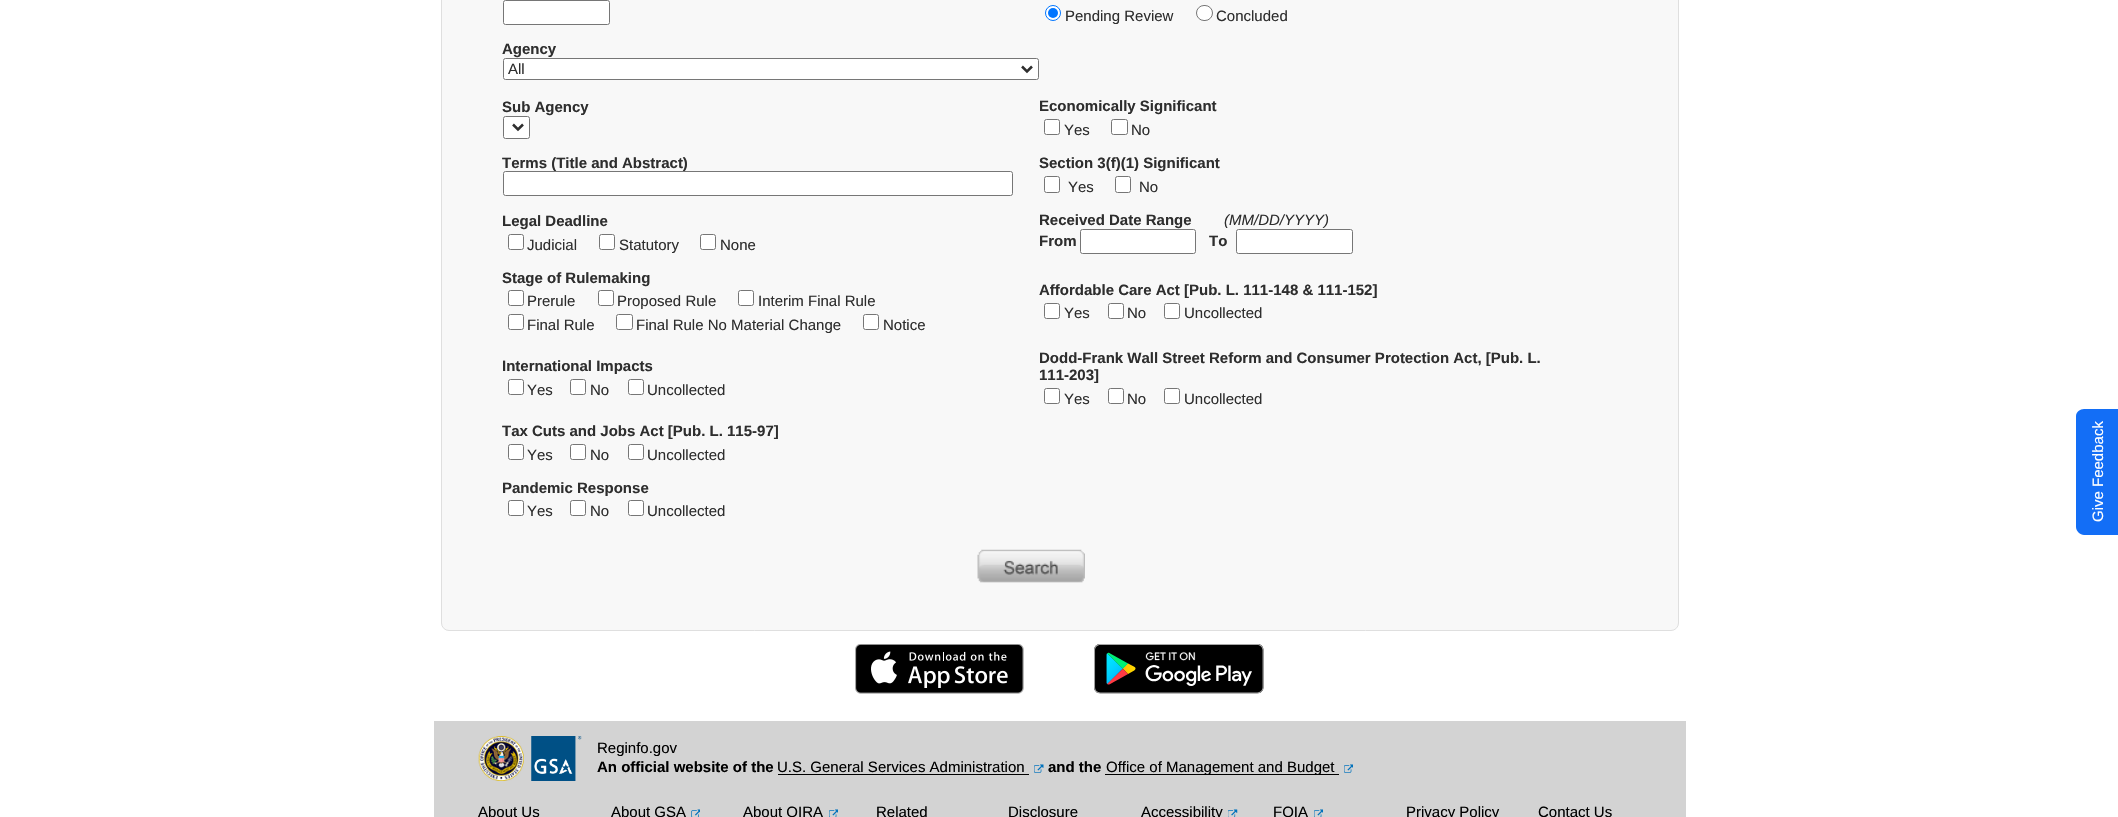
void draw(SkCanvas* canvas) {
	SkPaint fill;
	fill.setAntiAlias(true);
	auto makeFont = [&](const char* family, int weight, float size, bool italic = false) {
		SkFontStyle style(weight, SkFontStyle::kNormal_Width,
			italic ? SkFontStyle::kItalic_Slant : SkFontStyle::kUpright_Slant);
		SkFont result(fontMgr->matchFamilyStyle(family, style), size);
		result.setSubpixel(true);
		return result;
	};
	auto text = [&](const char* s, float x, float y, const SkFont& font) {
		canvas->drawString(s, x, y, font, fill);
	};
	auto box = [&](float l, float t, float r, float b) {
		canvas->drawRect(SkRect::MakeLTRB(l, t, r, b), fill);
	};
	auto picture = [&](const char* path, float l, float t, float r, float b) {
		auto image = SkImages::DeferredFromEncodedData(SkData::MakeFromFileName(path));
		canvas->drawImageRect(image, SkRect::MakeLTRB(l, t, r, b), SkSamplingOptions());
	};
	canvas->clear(0xFFFFFFFF);
	fill.setColor(0xFFF8F8F8);
	canvas->drawRoundRect(SkRect::MakeLTRB(441.5f, -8.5f, 1678.5f, 630.5f), 7.5f, 7.5f, fill);
	fill.setStyle(SkPaint::kStroke_Style);
	fill.setStrokeWidth(1);
	fill.setColor(0xFFDFDFDF);
	canvas->drawRoundRect(SkRect::MakeLTRB(441.5f, -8.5f, 1678.5f, 630.5f), 7.5f, 7.5f, fill);
	fill.setStyle(SkPaint::kFill_Style);
	fill.setColor(0xFFFFFFFF);
	canvas->drawRoundRect(SkRect::MakeLTRB(503.5f, 0.5f, 609.5f, 24.5f), 2, 2, fill);
	fill.setStyle(SkPaint::kStroke_Style);
	fill.setColor(0xFF767676);
	canvas->drawRoundRect(SkRect::MakeLTRB(503.5f, 0.5f, 609.5f, 24.5f), 2, 2, fill);
	fill.setStyle(SkPaint::kFill_Style);
	fill.setColor(0xFFFFFFFF);
	canvas->drawCircle(1053, 13, 7.5f, fill);
	fill.setStyle(SkPaint::kStroke_Style);
	fill.setColor(0xFF0075FF);
	canvas->drawCircle(1053, 13, 7.5f, fill);
	fill.setStyle(SkPaint::kFill_Style);
	canvas->drawCircle(1053, 13, 5, fill);
	fill.setColor(0xFFFFFFFF);
	canvas->drawRoundRect(SkRect::MakeLTRB(1196.5f, 5.5f, 1212.5f, 20.5f), 7.5f, 7.5f, fill);
	fill.setStyle(SkPaint::kStroke_Style);
	fill.setColor(0xFF767676);
	canvas->drawRoundRect(SkRect::MakeLTRB(1196.5f, 5.5f, 1212.5f, 20.5f), 7.5f, 7.5f, fill);
	fill.setStyle(SkPaint::kFill_Style);
	fill.setColor(0xFFFFFFFF);
	canvas->drawRoundRect(SkRect::MakeLTRB(503.5f, 58.5f, 1038.5f, 79.5f), 2, 2, fill);
	fill.setStyle(SkPaint::kStroke_Style);
	fill.setColor(0xFF767676);
	canvas->drawRoundRect(SkRect::MakeLTRB(503.5f, 58.5f, 1038.5f, 79.5f), 2, 2, fill);
	fill.setStrokeWidth(2.5f);
	fill.setColor(0xFF2E2E2E);
	canvas->drawPath(SkPathBuilder().moveTo(1022, 66.5f).lineTo(1027, 71.5f).lineTo(1032, 66.5f).detach(), fill);
	fill.setStyle(SkPaint::kFill_Style);
	fill.setColor(0xFFFFFFFF);
	canvas->drawRoundRect(SkRect::MakeLTRB(503.5f, 116.5f, 529.5f, 138.5f), 2, 2, fill);
	fill.setStyle(SkPaint::kStroke_Style);
	fill.setStrokeWidth(1);
	fill.setColor(0xFF767676);
	canvas->drawRoundRect(SkRect::MakeLTRB(503.5f, 116.5f, 529.5f, 138.5f), 2, 2, fill);
	fill.setStrokeWidth(2.5f);
	fill.setColor(0xFF2E2E2E);
	canvas->drawPath(SkPathBuilder().moveTo(513, 124.5f).lineTo(518, 129.5f).lineTo(523, 124.5f).detach(), fill);
	fill.setStyle(SkPaint::kFill_Style);
	fill.setColor(0xFFFFFFFF);
	canvas->drawRoundRect(SkRect::MakeLTRB(1044.5f, 119.5f, 1059.5f, 134.5f), 2, 2, fill);
	fill.setStyle(SkPaint::kStroke_Style);
	fill.setStrokeWidth(1);
	fill.setColor(0xFF767676);
	canvas->drawRoundRect(SkRect::MakeLTRB(1044.5f, 119.5f, 1059.5f, 134.5f), 2, 2, fill);
	fill.setStyle(SkPaint::kFill_Style);
	fill.setColor(0xFFFFFFFF);
	canvas->drawRoundRect(SkRect::MakeLTRB(1111.5f, 119.5f, 1127.5f, 134.5f), 2, 2, fill);
	fill.setStyle(SkPaint::kStroke_Style);
	fill.setColor(0xFF767676);
	canvas->drawRoundRect(SkRect::MakeLTRB(1111.5f, 119.5f, 1127.5f, 134.5f), 2, 2, fill);
	fill.setStyle(SkPaint::kFill_Style);
	fill.setColor(0xFFFFFFFF);
	canvas->drawRoundRect(SkRect::MakeLTRB(1044.5f, 176.5f, 1059.5f, 192.5f), 2, 2, fill);
	fill.setStyle(SkPaint::kStroke_Style);
	fill.setColor(0xFF767676);
	canvas->drawRoundRect(SkRect::MakeLTRB(1044.5f, 176.5f, 1059.5f, 192.5f), 2, 2, fill);
	fill.setStyle(SkPaint::kFill_Style);
	fill.setColor(0xFFFFFFFF);
	canvas->drawRoundRect(SkRect::MakeLTRB(1115.5f, 176.5f, 1130.5f, 192.5f), 2, 2, fill);
	fill.setStyle(SkPaint::kStroke_Style);
	fill.setColor(0xFF767676);
	canvas->drawRoundRect(SkRect::MakeLTRB(1115.5f, 176.5f, 1130.5f, 192.5f), 2, 2, fill);
	fill.setStyle(SkPaint::kFill_Style);
	fill.setColor(0xFFFFFFFF);
	canvas->drawRoundRect(SkRect::MakeLTRB(508.5f, 234.5f, 523.5f, 249.5f), 2, 2, fill);
	fill.setStyle(SkPaint::kStroke_Style);
	fill.setColor(0xFF767676);
	canvas->drawRoundRect(SkRect::MakeLTRB(508.5f, 234.5f, 523.5f, 249.5f), 2, 2, fill);
	fill.setStyle(SkPaint::kFill_Style);
	fill.setColor(0xFFFFFFFF);
	canvas->drawRoundRect(SkRect::MakeLTRB(599.5f, 234.5f, 614.5f, 249.5f), 2, 2, fill);
	fill.setStyle(SkPaint::kStroke_Style);
	fill.setColor(0xFF767676);
	canvas->drawRoundRect(SkRect::MakeLTRB(599.5f, 234.5f, 614.5f, 249.5f), 2, 2, fill);
	fill.setStyle(SkPaint::kFill_Style);
	fill.setColor(0xFFFFFFFF);
	canvas->drawRoundRect(SkRect::MakeLTRB(700.5f, 234.5f, 715.5f, 249.5f), 2, 2, fill);
	fill.setStyle(SkPaint::kStroke_Style);
	fill.setColor(0xFF767676);
	canvas->drawRoundRect(SkRect::MakeLTRB(700.5f, 234.5f, 715.5f, 249.5f), 2, 2, fill);
	fill.setStyle(SkPaint::kFill_Style);
	fill.setColor(0xFFFFFFFF);
	canvas->drawRoundRect(SkRect::MakeLTRB(1080.5f, 229.5f, 1195.5f, 253.5f), 2, 2, fill);
	fill.setStyle(SkPaint::kStroke_Style);
	fill.setColor(0xFF767676);
	canvas->drawRoundRect(SkRect::MakeLTRB(1080.5f, 229.5f, 1195.5f, 253.5f), 2, 2, fill);
	fill.setStyle(SkPaint::kFill_Style);
	fill.setColor(0xFFFFFFFF);
	canvas->drawRoundRect(SkRect::MakeLTRB(1236.5f, 229.5f, 1352.5f, 253.5f), 2, 2, fill);
	fill.setStyle(SkPaint::kStroke_Style);
	fill.setColor(0xFF767676);
	canvas->drawRoundRect(SkRect::MakeLTRB(1236.5f, 229.5f, 1352.5f, 253.5f), 2, 2, fill);
	fill.setStyle(SkPaint::kFill_Style);
	fill.setColor(0xFFFFFFFF);
	canvas->drawRoundRect(SkRect::MakeLTRB(508.5f, 290.5f, 523.5f, 305.5f), 2, 2, fill);
	fill.setStyle(SkPaint::kStroke_Style);
	fill.setColor(0xFF767676);
	canvas->drawRoundRect(SkRect::MakeLTRB(508.5f, 290.5f, 523.5f, 305.5f), 2, 2, fill);
	fill.setStyle(SkPaint::kFill_Style);
	fill.setColor(0xFFFFFFFF);
	canvas->drawRoundRect(SkRect::MakeLTRB(598.5f, 290.5f, 613.5f, 305.5f), 2, 2, fill);
	fill.setStyle(SkPaint::kStroke_Style);
	fill.setColor(0xFF767676);
	canvas->drawRoundRect(SkRect::MakeLTRB(598.5f, 290.5f, 613.5f, 305.5f), 2, 2, fill);
	fill.setStyle(SkPaint::kFill_Style);
	fill.setColor(0xFFFFFFFF);
	canvas->drawRoundRect(SkRect::MakeLTRB(738.5f, 290.5f, 753.5f, 305.5f), 2, 2, fill);
	fill.setStyle(SkPaint::kStroke_Style);
	fill.setColor(0xFF767676);
	canvas->drawRoundRect(SkRect::MakeLTRB(738.5f, 290.5f, 753.5f, 305.5f), 2, 2, fill);
	fill.setStyle(SkPaint::kFill_Style);
	fill.setColor(0xFFFFFFFF);
	canvas->drawRoundRect(SkRect::MakeLTRB(508.5f, 314.5f, 523.5f, 329.5f), 2, 2, fill);
	fill.setStyle(SkPaint::kStroke_Style);
	fill.setColor(0xFF767676);
	canvas->drawRoundRect(SkRect::MakeLTRB(508.5f, 314.5f, 523.5f, 329.5f), 2, 2, fill);
	fill.setStyle(SkPaint::kFill_Style);
	fill.setColor(0xFFFFFFFF);
	canvas->drawRoundRect(SkRect::MakeLTRB(616.5f, 314.5f, 632.5f, 329.5f), 2, 2, fill);
	fill.setStyle(SkPaint::kStroke_Style);
	fill.setColor(0xFF767676);
	canvas->drawRoundRect(SkRect::MakeLTRB(616.5f, 314.5f, 632.5f, 329.5f), 2, 2, fill);
	fill.setStyle(SkPaint::kFill_Style);
	fill.setColor(0xFFFFFFFF);
	canvas->drawRoundRect(SkRect::MakeLTRB(863.5f, 314.5f, 878.5f, 329.5f), 2, 2, fill);
	fill.setStyle(SkPaint::kStroke_Style);
	fill.setColor(0xFF767676);
	canvas->drawRoundRect(SkRect::MakeLTRB(863.5f, 314.5f, 878.5f, 329.5f), 2, 2, fill);
	fill.setStyle(SkPaint::kFill_Style);
	fill.setColor(0xFFFFFFFF);
	canvas->drawRoundRect(SkRect::MakeLTRB(1044.5f, 303.5f, 1059.5f, 318.5f), 2, 2, fill);
	fill.setStyle(SkPaint::kStroke_Style);
	fill.setColor(0xFF767676);
	canvas->drawRoundRect(SkRect::MakeLTRB(1044.5f, 303.5f, 1059.5f, 318.5f), 2, 2, fill);
	fill.setStyle(SkPaint::kFill_Style);
	fill.setColor(0xFFFFFFFF);
	canvas->drawRoundRect(SkRect::MakeLTRB(1108.5f, 303.5f, 1123.5f, 318.5f), 2, 2, fill);
	fill.setStyle(SkPaint::kStroke_Style);
	fill.setColor(0xFF767676);
	canvas->drawRoundRect(SkRect::MakeLTRB(1108.5f, 303.5f, 1123.5f, 318.5f), 2, 2, fill);
	fill.setStyle(SkPaint::kFill_Style);
	fill.setColor(0xFFFFFFFF);
	canvas->drawRoundRect(SkRect::MakeLTRB(1164.5f, 303.5f, 1179.5f, 318.5f), 2, 2, fill);
	fill.setStyle(SkPaint::kStroke_Style);
	fill.setColor(0xFF767676);
	canvas->drawRoundRect(SkRect::MakeLTRB(1164.5f, 303.5f, 1179.5f, 318.5f), 2, 2, fill);
	fill.setStyle(SkPaint::kFill_Style);
	fill.setColor(0xFFFFFFFF);
	canvas->drawRoundRect(SkRect::MakeLTRB(508.5f, 379.5f, 523.5f, 394.5f), 2, 2, fill);
	fill.setStyle(SkPaint::kStroke_Style);
	fill.setColor(0xFF767676);
	canvas->drawRoundRect(SkRect::MakeLTRB(508.5f, 379.5f, 523.5f, 394.5f), 2, 2, fill);
	fill.setStyle(SkPaint::kFill_Style);
	fill.setColor(0xFFFFFFFF);
	canvas->drawRoundRect(SkRect::MakeLTRB(570.5f, 379.5f, 585.5f, 394.5f), 2, 2, fill);
	fill.setStyle(SkPaint::kStroke_Style);
	fill.setColor(0xFF767676);
	canvas->drawRoundRect(SkRect::MakeLTRB(570.5f, 379.5f, 585.5f, 394.5f), 2, 2, fill);
	fill.setStyle(SkPaint::kFill_Style);
	fill.setColor(0xFFFFFFFF);
	canvas->drawRoundRect(SkRect::MakeLTRB(628.5f, 379.5f, 643.5f, 394.5f), 2, 2, fill);
	fill.setStyle(SkPaint::kStroke_Style);
	fill.setColor(0xFF767676);
	canvas->drawRoundRect(SkRect::MakeLTRB(628.5f, 379.5f, 643.5f, 394.5f), 2, 2, fill);
	fill.setStyle(SkPaint::kFill_Style);
	fill.setColor(0xFFFFFFFF);
	canvas->drawRoundRect(SkRect::MakeLTRB(1044.5f, 388.5f, 1059.5f, 403.5f), 2, 2, fill);
	fill.setStyle(SkPaint::kStroke_Style);
	fill.setColor(0xFF767676);
	canvas->drawRoundRect(SkRect::MakeLTRB(1044.5f, 388.5f, 1059.5f, 403.5f), 2, 2, fill);
	fill.setStyle(SkPaint::kFill_Style);
	fill.setColor(0xFFFFFFFF);
	canvas->drawRoundRect(SkRect::MakeLTRB(1108.5f, 388.5f, 1123.5f, 403.5f), 2, 2, fill);
	fill.setStyle(SkPaint::kStroke_Style);
	fill.setColor(0xFF767676);
	canvas->drawRoundRect(SkRect::MakeLTRB(1108.5f, 388.5f, 1123.5f, 403.5f), 2, 2, fill);
	fill.setStyle(SkPaint::kFill_Style);
	fill.setColor(0xFFFFFFFF);
	canvas->drawRoundRect(SkRect::MakeLTRB(1164.5f, 388.5f, 1179.5f, 403.5f), 2, 2, fill);
	fill.setStyle(SkPaint::kStroke_Style);
	fill.setColor(0xFF767676);
	canvas->drawRoundRect(SkRect::MakeLTRB(1164.5f, 388.5f, 1179.5f, 403.5f), 2, 2, fill);
	fill.setStyle(SkPaint::kFill_Style);
	fill.setColor(0xFFFFFFFF);
	canvas->drawRoundRect(SkRect::MakeLTRB(508.5f, 444.5f, 523.5f, 459.5f), 2, 2, fill);
	fill.setStyle(SkPaint::kStroke_Style);
	fill.setColor(0xFF767676);
	canvas->drawRoundRect(SkRect::MakeLTRB(508.5f, 444.5f, 523.5f, 459.5f), 2, 2, fill);
	fill.setStyle(SkPaint::kFill_Style);
	fill.setColor(0xFFFFFFFF);
	canvas->drawRoundRect(SkRect::MakeLTRB(570.5f, 444.5f, 585.5f, 459.5f), 2, 2, fill);
	fill.setStyle(SkPaint::kStroke_Style);
	fill.setColor(0xFF767676);
	canvas->drawRoundRect(SkRect::MakeLTRB(570.5f, 444.5f, 585.5f, 459.5f), 2, 2, fill);
	fill.setStyle(SkPaint::kFill_Style);
	fill.setColor(0xFFFFFFFF);
	canvas->drawRoundRect(SkRect::MakeLTRB(628.5f, 444.5f, 643.5f, 459.5f), 2, 2, fill);
	fill.setStyle(SkPaint::kStroke_Style);
	fill.setColor(0xFF767676);
	canvas->drawRoundRect(SkRect::MakeLTRB(628.5f, 444.5f, 643.5f, 459.5f), 2, 2, fill);
	fill.setStyle(SkPaint::kFill_Style);
	fill.setColor(0xFFFFFFFF);
	canvas->drawRoundRect(SkRect::MakeLTRB(508.5f, 500.5f, 523.5f, 515.5f), 2, 2, fill);
	fill.setStyle(SkPaint::kStroke_Style);
	fill.setColor(0xFF767676);
	canvas->drawRoundRect(SkRect::MakeLTRB(508.5f, 500.5f, 523.5f, 515.5f), 2, 2, fill);
	fill.setStyle(SkPaint::kFill_Style);
	fill.setColor(0xFFFFFFFF);
	canvas->drawRoundRect(SkRect::MakeLTRB(570.5f, 500.5f, 585.5f, 515.5f), 2, 2, fill);
	fill.setStyle(SkPaint::kStroke_Style);
	fill.setColor(0xFF767676);
	canvas->drawRoundRect(SkRect::MakeLTRB(570.5f, 500.5f, 585.5f, 515.5f), 2, 2, fill);
	fill.setStyle(SkPaint::kFill_Style);
	fill.setColor(0xFFFFFFFF);
	canvas->drawRoundRect(SkRect::MakeLTRB(628.5f, 500.5f, 643.5f, 515.5f), 2, 2, fill);
	fill.setStyle(SkPaint::kStroke_Style);
	fill.setColor(0xFF767676);
	canvas->drawRoundRect(SkRect::MakeLTRB(628.5f, 500.5f, 643.5f, 515.5f), 2, 2, fill);
	picture("image0.png", 977, 549, 1085, 583);
	picture("image1.png", 855, 644, 1024, 694);
	picture("image2.png", 1094, 644, 1264, 694);
	fill.setStyle(SkPaint::kFill_Style);
	fill.setColor(0xFFD3D3D3);
	box(434, 721, 1686, 817);
	picture("image3.png", 478, 736, 524, 781);
	picture("image4.png", 531, 736, 582, 781);
	fill.setColor(0xFF000000);
	box(778, 774, 1029, 775);
	picture("image5.png", 1034, 764, 1044, 773);
	box(1105, 774, 1339, 775);
	picture("image6.png", 1344, 764, 1353, 773);
	picture("image7.png", 691, 809, 700, 817);
	picture("image8.png", 829, 809, 838, 817);
	picture("image9.png", 1228, 809, 1238, 817);
	picture("image8.png", 1314, 809, 1323, 817);
	fill.setColor(0xFF136EF6);
	canvas->drawPath(SkPathBuilder().moveTo(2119, 535).lineTo(2084, 535).cubicTo(2080, 535, 2076, 531, 2076, 527).lineTo(2076, 416).cubicTo(2076, 412, 2080, 409, 2084, 409).lineTo(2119, 409).close().detach(), fill);
	auto font1 = makeFont("Liberation Sans", 400, 15);
	fill.setColor(0xFF2E2E2E);
	text("Pending Review", 1065, 21, font1);
	text("Concluded", 1216, 21, font1);
	auto font2 = makeFont("Liberation Sans", 700, 15);
	text("Agency", 502, 54, font2);
	text("All", 508, 74, font1);
	text("Sub Agency", 502, 112, font2);
	text("Economically Significant", 1039, 111, font2);
	text("Yes", 1064, 135, font1);
	text("No", 1131, 135, font1);
	text("Terms (Title and Abstract)", 502, 168, font2);
	fill.setColor(0xFFFFFFFF);
	canvas->drawRoundRect(SkRect::MakeLTRB(503.5f, 171.5f, 1012.5f, 195.5f), 2, 2, fill);
	fill.setStyle(SkPaint::kStroke_Style);
	fill.setColor(0xFF767676);
	canvas->drawRoundRect(SkRect::MakeLTRB(503.5f, 171.5f, 1012.5f, 195.5f), 2, 2, fill);
	fill.setStyle(SkPaint::kFill_Style);
	fill.setColor(0xFF2E2E2E);
	text("Section 3(f)(1) Significant", 1039, 168, font2);
	text("Yes", 1068, 192, font1);
	text("No", 1139, 192, font1);
	text("Legal Deadline", 502, 226, font2);
	text("Judicial", 527, 250, font1);
	text("Statutory", 619, 250, font1);
	text("None", 720, 250, font1);
	text("Received Date Range", 1039, 225, font2);
	auto font3 = makeFont("Liberation Sans", 400, 15, true);
	text("(MM/DD/YYYY)", 1224, 225, font3);
	text("From", 1039, 246, font2);
	text("To", 1209, 246, font2);
	text("Stage of Rulemaking", 502, 283, font2);
	text("Prerule", 527, 306, font1);
	text("Proposed Rule", 617, 306, font1);
	text("Interim Final Rule", 758, 306, font1);
	text("Final Rule", 527, 330, font1);
	text("Final Rule No Material Change", 636, 330, font1);
	text("Notice", 883, 330, font1);
	text("Affordable Care Act [Pub. L. 111-148 & 111-152]", 1039, 295, font2);
	text("Yes", 1064, 318, font1);
	text("No", 1127, 318, font1);
	text("Uncollected", 1184, 318, font1);
	text("International Impacts", 502, 371, font2);
	text("Yes", 527, 395, font1);
	text("No", 590, 395, font1);
	text("Uncollected", 647, 395, font1);
	text("Dodd-Frank Wall Street Reform and Consumer Protection Act, [Pub. L.", 1039, 363, font2);
	text("111-203]", 1039, 380, font2);
	text("Yes", 1064, 404, font1);
	text("No", 1127, 404, font1);
	text("Uncollected", 1184, 404, font1);
	text("Tax Cuts and Jobs Act [Pub. L. 115-97]", 502, 436, font2);
	text("Yes", 527, 460, font1);
	text("No", 590, 460, font1);
	text("Uncollected", 647, 460, font1);
	text("Pandemic Response", 502, 493, font2);
	text("Yes", 527, 516, font1);
	text("No", 590, 516, font1);
	text("Uncollected", 647, 516, font1);
	fill.setColor(0xFF000000);
	text("Reginfo.gov", 597, 753, font1);
	text("An official website of the", 597, 772, font2);
	text("U.S. General Services Administration", 777, 772, font1);
	text("and the", 1048, 772, font2);
	text("Office of Management and Budget", 1106, 772, font1);
	text("About Us", 478, 817, font1);
	text("About GSA", 611, 817, font1);
	text("About OIRA", 743, 817, font1);
	text("Related", 876, 817, font1);
	text("Disclosure", 1008, 817, font1);
	text("Accessibility", 1141, 817, font1);
	text("FOIA", 1273, 817, font1);
	text("Privacy Policy", 1406, 817, font1);
	text("Contact Us", 1538, 817, font1);
	fill.setColor(0xFFFFFFFF);
	canvas->save();
	canvas->rotate(-90, 2103, 522);
	text("Give Feedback", 2103, 522, font1);
	canvas->restore();
}
